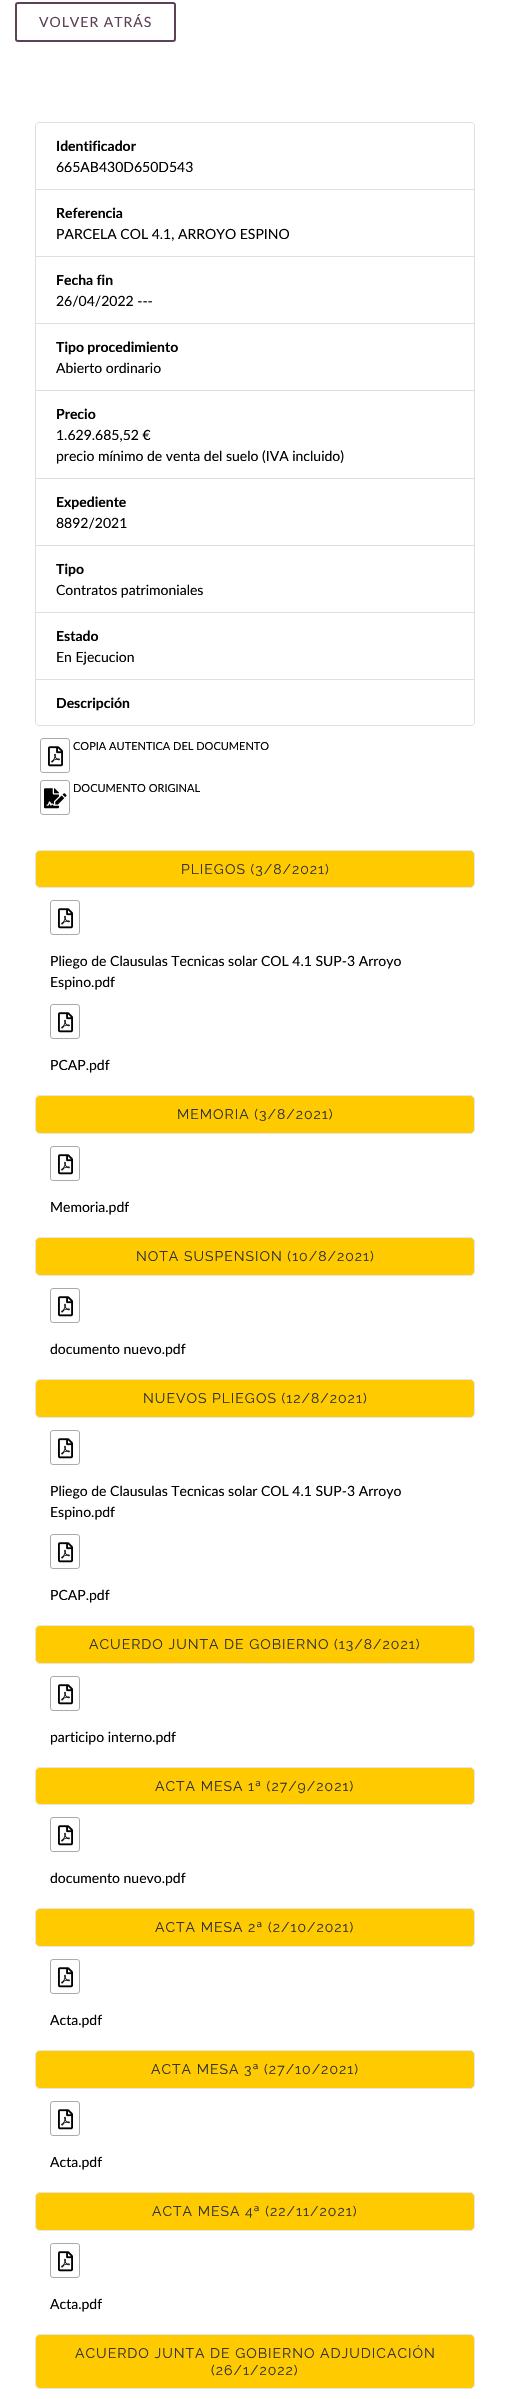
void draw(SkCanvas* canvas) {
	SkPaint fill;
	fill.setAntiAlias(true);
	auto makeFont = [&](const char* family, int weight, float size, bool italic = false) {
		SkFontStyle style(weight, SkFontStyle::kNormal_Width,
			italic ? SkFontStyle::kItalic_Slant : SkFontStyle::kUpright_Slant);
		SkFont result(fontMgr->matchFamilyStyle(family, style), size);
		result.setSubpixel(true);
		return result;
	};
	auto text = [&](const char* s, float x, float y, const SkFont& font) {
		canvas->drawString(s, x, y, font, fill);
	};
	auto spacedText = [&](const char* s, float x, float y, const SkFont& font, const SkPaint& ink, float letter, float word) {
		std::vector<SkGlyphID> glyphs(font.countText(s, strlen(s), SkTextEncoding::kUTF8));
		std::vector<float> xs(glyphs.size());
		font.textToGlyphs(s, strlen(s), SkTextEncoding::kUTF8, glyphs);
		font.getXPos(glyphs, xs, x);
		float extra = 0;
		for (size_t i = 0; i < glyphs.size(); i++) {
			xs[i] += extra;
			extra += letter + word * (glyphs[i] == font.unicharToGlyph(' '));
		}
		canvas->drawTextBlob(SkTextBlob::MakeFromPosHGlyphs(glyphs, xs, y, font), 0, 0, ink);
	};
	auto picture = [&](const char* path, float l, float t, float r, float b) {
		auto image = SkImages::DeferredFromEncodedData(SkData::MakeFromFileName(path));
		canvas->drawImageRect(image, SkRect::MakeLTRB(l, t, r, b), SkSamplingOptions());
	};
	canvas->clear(0xFFFFFFFF);
	fill.setStyle(SkPaint::kStroke_Style);
	fill.setStrokeWidth(2);
	fill.setColor(0xFF5D4157);
	canvas->drawRoundRect(SkRect::MakeLTRB(16, 3, 175, 41), 2, 2, fill);
	fill.setStrokeWidth(1);
	fill.setColor(0xFFDFDFDF);
	canvas->drawPath(SkPathBuilder().moveTo(39, 122.5f).lineTo(471, 122.5f).cubicTo(473, 122.5f, 474.5f, 124, 474.5f, 126).lineTo(474.5f, 189.5f).lineTo(35.5f, 189.5f).lineTo(35.5f, 126).cubicTo(35.5f, 124, 37, 122.5f, 39, 122.5f).close().detach(), fill);
	canvas->drawRect(SkRect::MakeLTRB(35.5f, 189.5f, 474.5f, 256.5f), fill);
	canvas->drawRect(SkRect::MakeLTRB(35.5f, 256.5f, 474.5f, 323.5f), fill);
	canvas->drawRect(SkRect::MakeLTRB(35.5f, 323.5f, 474.5f, 390.5f), fill);
	canvas->drawRect(SkRect::MakeLTRB(35.5f, 390.5f, 474.5f, 478.5f), fill);
	canvas->drawRect(SkRect::MakeLTRB(35.5f, 478.5f, 474.5f, 545.5f), fill);
	canvas->drawRect(SkRect::MakeLTRB(35.5f, 545.5f, 474.5f, 612.5f), fill);
	canvas->drawRect(SkRect::MakeLTRB(35.5f, 612.5f, 474.5f, 679.5f), fill);
	fill.setStyle(SkPaint::kFill_Style);
	fill.setColor(0xFFFFFFFF);
	canvas->drawPath(SkPathBuilder().moveTo(35.5f, 679.5f).lineTo(474.5f, 679.5f).lineTo(474.5f, 722).cubicTo(474.5f, 724, 473, 725.5f, 471, 725.5f).lineTo(39, 725.5f).cubicTo(37, 725.5f, 35.5f, 724, 35.5f, 722).close().detach(), fill);
	fill.setStyle(SkPaint::kStroke_Style);
	fill.setColor(0xFFDFDFDF);
	canvas->drawPath(SkPathBuilder().moveTo(35.5f, 679.5f).lineTo(474.5f, 679.5f).lineTo(474.5f, 722).cubicTo(474.5f, 724, 473, 725.5f, 471, 725.5f).lineTo(39, 725.5f).cubicTo(37, 725.5f, 35.5f, 724, 35.5f, 722).close().detach(), fill);
	fill.setColor(0xFFAAAAAA);
	canvas->drawRoundRect(SkRect::MakeLTRB(40.5f, 738.5f, 69.5f, 772.5f), 2.5f, 2.5f, fill);
	picture("image0.png", 48, 746, 63, 767);
	canvas->drawRoundRect(SkRect::MakeLTRB(40.5f, 780.5f, 69.5f, 814.5f), 2.5f, 2.5f, fill);
	picture("image1.png", 44, 788, 67, 809);
	fill.setStyle(SkPaint::kFill_Style);
	fill.setColor(0xFFFFCB00);
	canvas->drawRoundRect(SkRect::MakeLTRB(35.5f, 850.5f, 474.5f, 887.5f), 4.5f, 4.5f, fill);
	fill.setStyle(SkPaint::kStroke_Style);
	fill.setColor(0xFFE5E5E5);
	canvas->drawRoundRect(SkRect::MakeLTRB(35.5f, 850.5f, 474.5f, 887.5f), 4.5f, 4.5f, fill);
	fill.setColor(0xFFAAAAAA);
	canvas->drawRoundRect(SkRect::MakeLTRB(50.5f, 900.5f, 79.5f, 934.5f), 2.5f, 2.5f, fill);
	picture("image0.png", 58, 908, 73, 929);
	canvas->drawRoundRect(SkRect::MakeLTRB(50.5f, 1004.5f, 79.5f, 1038.5f), 2.5f, 2.5f, fill);
	picture("image0.png", 58, 1012, 73, 1033);
	fill.setStyle(SkPaint::kFill_Style);
	fill.setColor(0xFFFFCB00);
	canvas->drawRoundRect(SkRect::MakeLTRB(35.5f, 1095.5f, 474.5f, 1133.5f), 4.5f, 4.5f, fill);
	fill.setStyle(SkPaint::kStroke_Style);
	fill.setColor(0xFFE5E5E5);
	canvas->drawRoundRect(SkRect::MakeLTRB(35.5f, 1095.5f, 474.5f, 1133.5f), 4.5f, 4.5f, fill);
	fill.setColor(0xFFAAAAAA);
	canvas->drawRoundRect(SkRect::MakeLTRB(50.5f, 1146.5f, 79.5f, 1180.5f), 2.5f, 2.5f, fill);
	picture("image0.png", 58, 1154, 73, 1175);
	fill.setStyle(SkPaint::kFill_Style);
	fill.setColor(0xFFFFCB00);
	canvas->drawRoundRect(SkRect::MakeLTRB(35.5f, 1237.5f, 474.5f, 1275.5f), 4.5f, 4.5f, fill);
	fill.setStyle(SkPaint::kStroke_Style);
	fill.setColor(0xFFE5E5E5);
	canvas->drawRoundRect(SkRect::MakeLTRB(35.5f, 1237.5f, 474.5f, 1275.5f), 4.5f, 4.5f, fill);
	fill.setColor(0xFFAAAAAA);
	canvas->drawRoundRect(SkRect::MakeLTRB(50.5f, 1288.5f, 79.5f, 1322.5f), 2.5f, 2.5f, fill);
	picture("image0.png", 58, 1296, 73, 1317);
	fill.setStyle(SkPaint::kFill_Style);
	fill.setColor(0xFFFFCB00);
	canvas->drawRoundRect(SkRect::MakeLTRB(35.5f, 1379.5f, 474.5f, 1417.5f), 4.5f, 4.5f, fill);
	fill.setStyle(SkPaint::kStroke_Style);
	fill.setColor(0xFFE5E5E5);
	canvas->drawRoundRect(SkRect::MakeLTRB(35.5f, 1379.5f, 474.5f, 1417.5f), 4.5f, 4.5f, fill);
	fill.setColor(0xFFAAAAAA);
	canvas->drawRoundRect(SkRect::MakeLTRB(50.5f, 1430.5f, 79.5f, 1464.5f), 2.5f, 2.5f, fill);
	picture("image0.png", 58, 1438, 73, 1459);
	canvas->drawRoundRect(SkRect::MakeLTRB(50.5f, 1534.5f, 79.5f, 1568.5f), 2.5f, 2.5f, fill);
	picture("image0.png", 58, 1542, 73, 1563);
	fill.setStyle(SkPaint::kFill_Style);
	fill.setColor(0xFFFFCB00);
	canvas->drawRoundRect(SkRect::MakeLTRB(35.5f, 1625.5f, 474.5f, 1663.5f), 4.5f, 4.5f, fill);
	fill.setStyle(SkPaint::kStroke_Style);
	fill.setColor(0xFFE5E5E5);
	canvas->drawRoundRect(SkRect::MakeLTRB(35.5f, 1625.5f, 474.5f, 1663.5f), 4.5f, 4.5f, fill);
	fill.setColor(0xFFAAAAAA);
	canvas->drawRoundRect(SkRect::MakeLTRB(50.5f, 1676.5f, 79.5f, 1710.5f), 2.5f, 2.5f, fill);
	picture("image0.png", 58, 1684, 73, 1705);
	fill.setStyle(SkPaint::kFill_Style);
	fill.setColor(0xFFFFCB00);
	canvas->drawRoundRect(SkRect::MakeLTRB(35.5f, 1767.5f, 474.5f, 1804.5f), 4.5f, 4.5f, fill);
	fill.setStyle(SkPaint::kStroke_Style);
	fill.setColor(0xFFE5E5E5);
	canvas->drawRoundRect(SkRect::MakeLTRB(35.5f, 1767.5f, 474.5f, 1804.5f), 4.5f, 4.5f, fill);
	fill.setColor(0xFFAAAAAA);
	canvas->drawRoundRect(SkRect::MakeLTRB(50.5f, 1817.5f, 79.5f, 1851.5f), 2.5f, 2.5f, fill);
	picture("image0.png", 58, 1825, 73, 1846);
	fill.setStyle(SkPaint::kFill_Style);
	fill.setColor(0xFFFFCB00);
	canvas->drawRoundRect(SkRect::MakeLTRB(35.5f, 1908.5f, 474.5f, 1946.5f), 4.5f, 4.5f, fill);
	fill.setStyle(SkPaint::kStroke_Style);
	fill.setColor(0xFFE5E5E5);
	canvas->drawRoundRect(SkRect::MakeLTRB(35.5f, 1908.5f, 474.5f, 1946.5f), 4.5f, 4.5f, fill);
	fill.setColor(0xFFAAAAAA);
	canvas->drawRoundRect(SkRect::MakeLTRB(50.5f, 1959.5f, 79.5f, 1993.5f), 2.5f, 2.5f, fill);
	picture("image0.png", 58, 1967, 73, 1988);
	fill.setStyle(SkPaint::kFill_Style);
	fill.setColor(0xFFFFCB00);
	canvas->drawRoundRect(SkRect::MakeLTRB(35.5f, 2050.5f, 474.5f, 2088.5f), 4.5f, 4.5f, fill);
	fill.setStyle(SkPaint::kStroke_Style);
	fill.setColor(0xFFE5E5E5);
	canvas->drawRoundRect(SkRect::MakeLTRB(35.5f, 2050.5f, 474.5f, 2088.5f), 4.5f, 4.5f, fill);
	fill.setColor(0xFFAAAAAA);
	canvas->drawRoundRect(SkRect::MakeLTRB(50.5f, 2101.5f, 79.5f, 2135.5f), 2.5f, 2.5f, fill);
	picture("image0.png", 58, 2109, 73, 2130);
	fill.setStyle(SkPaint::kFill_Style);
	fill.setColor(0xFFFFCB00);
	canvas->drawRoundRect(SkRect::MakeLTRB(35.5f, 2192.5f, 474.5f, 2230.5f), 4.5f, 4.5f, fill);
	fill.setStyle(SkPaint::kStroke_Style);
	fill.setColor(0xFFE5E5E5);
	canvas->drawRoundRect(SkRect::MakeLTRB(35.5f, 2192.5f, 474.5f, 2230.5f), 4.5f, 4.5f, fill);
	fill.setColor(0xFFAAAAAA);
	canvas->drawRoundRect(SkRect::MakeLTRB(50.5f, 2243.5f, 79.5f, 2277.5f), 2.5f, 2.5f, fill);
	picture("image0.png", 58, 2251, 73, 2272);
	fill.setStyle(SkPaint::kFill_Style);
	fill.setColor(0xFFFFCB00);
	canvas->drawRoundRect(SkRect::MakeLTRB(35.5f, 2334.5f, 474.5f, 2388.5f), 4.5f, 4.5f, fill);
	fill.setStyle(SkPaint::kStroke_Style);
	fill.setColor(0xFFE5E5E5);
	canvas->drawRoundRect(SkRect::MakeLTRB(35.5f, 2334.5f, 474.5f, 2388.5f), 4.5f, 4.5f, fill);
	auto font1 = makeFont("Lato", 400, 14);
	fill.setStyle(SkPaint::kFill_Style);
	fill.setColor(0xFF5D4157);
	spacedText("VOLVER ATRÁS", 39, 27, font1, fill, 1, 0);
	auto font2 = makeFont("Lato", 700, 14);
	fill.setColor(0xFF000000);
	text("Identificador", 56, 151, font2);
	text("665AB430D650D543", 56, 172, font1);
	text("Referencia", 56, 218, font2);
	text("PARCELA COL 4.1, ARROYO ESPINO", 56, 239, font1);
	text("Fecha fin", 56, 285, font2);
	text("26/04/2022 ---", 56, 306, font1);
	text("Tipo procedimiento", 56, 352, font2);
	text("Abierto ordinario", 56, 373, font1);
	text("Precio", 56, 419, font2);
	text("1.629.685,52 €", 56, 440, font1);
	text("precio mínimo de venta del suelo (IVA incluido)", 56, 461, font1);
	text("Expediente", 56, 507, font2);
	text("8892/2021", 56, 528, font1);
	text("Tipo", 56, 574, font2);
	text("Contratos patrimoniales", 56, 595, font1);
	text("Estado", 56, 641, font2);
	text("En Ejecucion", 56, 662, font1);
	text("Descripción", 56, 708, font2);
	auto font3 = makeFont("Lato", 400, 11);
	text("COPIA AUTENTICA DEL DOCUMENTO", 73, 750, font3);
	text("DOCUMENTO ORIGINAL", 73, 792, font3);
	auto font4 = makeFont("Raleway", 400, 14);
	fill.setColor(0xFF333333);
	spacedText("PLIEGOS (3/8/2021)", 181, 874, font4, fill, 1, 0);
	fill.setColor(0xFF000000);
	text("Pliego de Clausulas Tecnicas solar COL 4.1 SUP-3 Arroyo", 50, 966, font1);
	text("Espino.pdf", 50, 987, font1);
	text("PCAP.pdf", 50, 1070, font1);
	fill.setColor(0xFF333333);
	spacedText("MEMORIA (3/8/2021)", 177, 1119, font4, fill, 1, 0);
	fill.setColor(0xFF000000);
	text("Memoria.pdf", 50, 1212, font1);
	fill.setColor(0xFF333333);
	spacedText("NOTA SUSPENSION (10/8/2021)", 136, 1261, font4, fill, 1, 0);
	fill.setColor(0xFF000000);
	text("documento nuevo.pdf", 50, 1354, font1);
	fill.setColor(0xFF333333);
	spacedText("NUEVOS PLIEGOS (12/8/2021)", 143, 1403, font4, fill, 1, 0);
	fill.setColor(0xFF000000);
	text("Pliego de Clausulas Tecnicas solar COL 4.1 SUP-3 Arroyo", 50, 1496, font1);
	text("Espino.pdf", 50, 1517, font1);
	text("PCAP.pdf", 50, 1600, font1);
	fill.setColor(0xFF333333);
	spacedText("ACUERDO JUNTA DE GOBIERNO (13/8/2021)", 89, 1649, font4, fill, 1, 0);
	fill.setColor(0xFF000000);
	text("participo interno.pdf", 50, 1742, font1);
	fill.setColor(0xFF333333);
	spacedText("ACTA MESA 1ª (27/9/2021)", 155, 1791, font4, fill, 1, 0);
	fill.setColor(0xFF000000);
	text("documento nuevo.pdf", 50, 1883, font1);
	fill.setColor(0xFF333333);
	spacedText("ACTA MESA 2ª (2/10/2021)", 155, 1932, font4, fill, 1, 0);
	fill.setColor(0xFF000000);
	text("Acta.pdf", 50, 2025, font1);
	fill.setColor(0xFF333333);
	spacedText("ACTA MESA 3ª (27/10/2021)", 151, 2074, font4, fill, 1, 0);
	fill.setColor(0xFF000000);
	text("Acta.pdf", 50, 2167, font1);
	fill.setColor(0xFF333333);
	spacedText("ACTA MESA 4ª (22/11/2021)", 152, 2216, font4, fill, 1, 0);
	fill.setColor(0xFF000000);
	text("Acta.pdf", 50, 2309, font1);
	fill.setColor(0xFF333333);
	spacedText("ACUERDO JUNTA DE GOBIERNO ADJUDICACIÓN", 75, 2358, font4, fill, 1, 0);
	spacedText("(26/1/2022)", 211, 2375, font4, fill, 1, 0);
}
